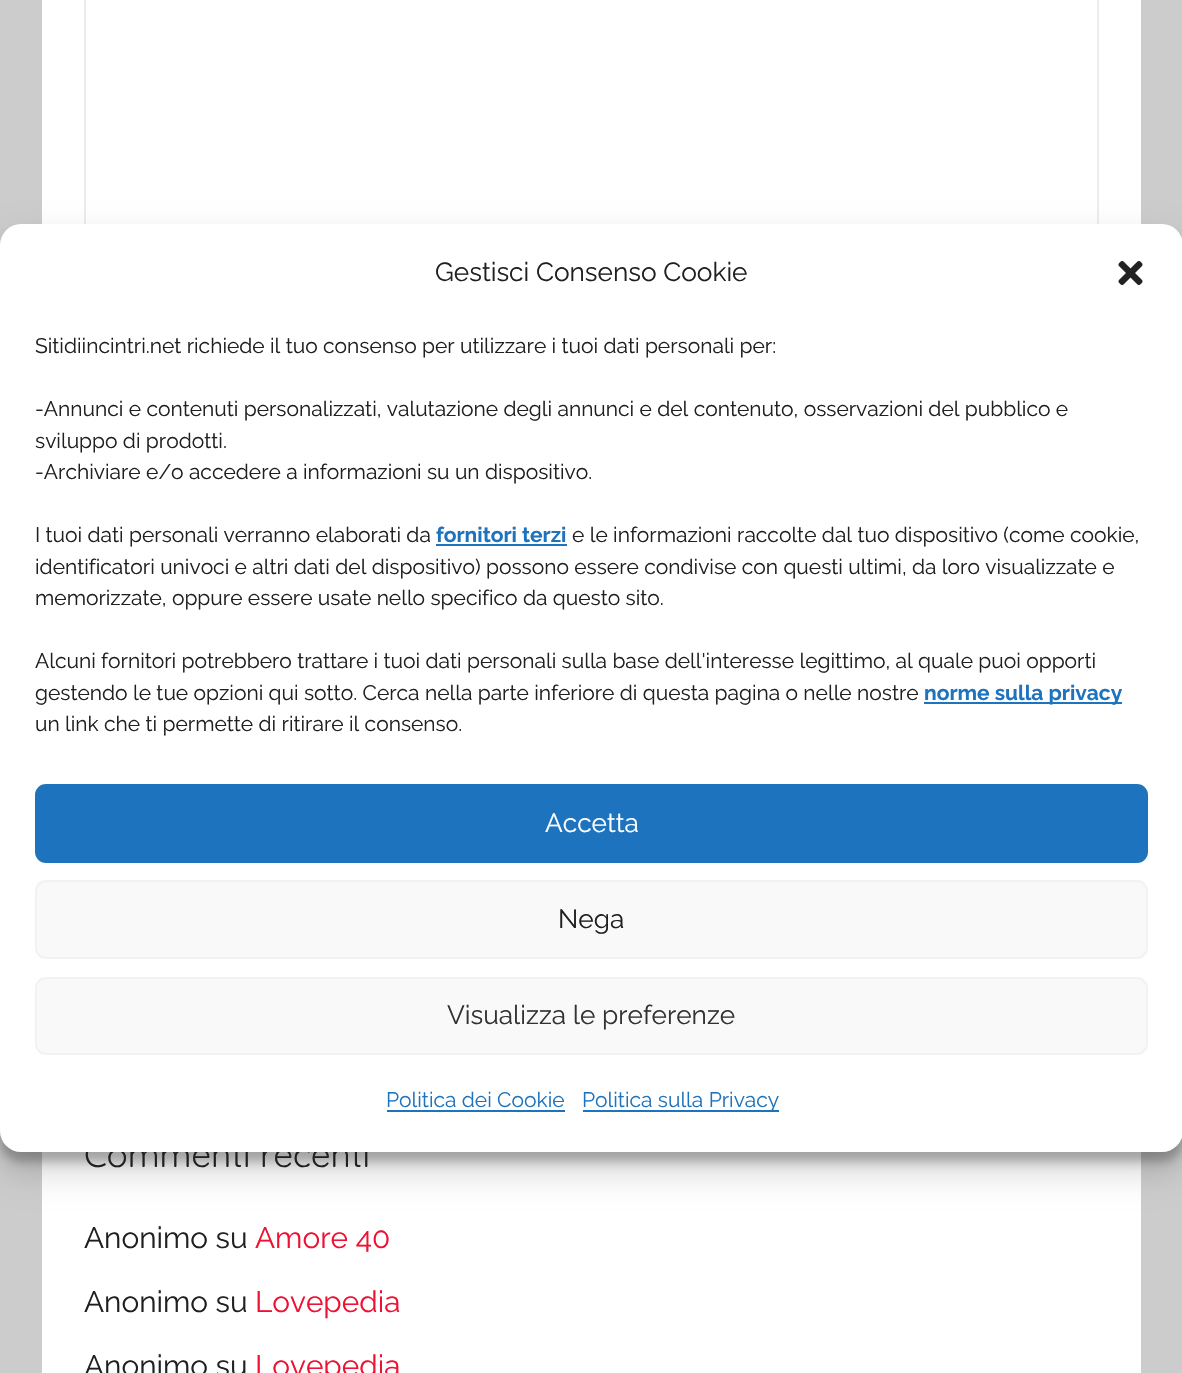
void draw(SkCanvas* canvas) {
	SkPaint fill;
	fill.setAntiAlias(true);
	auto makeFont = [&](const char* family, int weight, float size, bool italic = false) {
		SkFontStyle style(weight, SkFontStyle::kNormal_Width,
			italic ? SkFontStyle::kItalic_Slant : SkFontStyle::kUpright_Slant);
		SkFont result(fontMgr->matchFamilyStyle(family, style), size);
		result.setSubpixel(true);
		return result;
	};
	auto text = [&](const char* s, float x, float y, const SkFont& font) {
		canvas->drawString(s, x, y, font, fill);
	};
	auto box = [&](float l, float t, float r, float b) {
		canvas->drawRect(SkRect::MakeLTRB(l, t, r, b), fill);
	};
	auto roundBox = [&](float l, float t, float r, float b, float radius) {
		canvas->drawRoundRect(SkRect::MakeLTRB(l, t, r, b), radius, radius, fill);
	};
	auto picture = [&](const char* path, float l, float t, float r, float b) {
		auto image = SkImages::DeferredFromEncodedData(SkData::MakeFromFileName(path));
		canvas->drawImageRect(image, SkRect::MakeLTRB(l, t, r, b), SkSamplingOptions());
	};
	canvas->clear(0xFFCCCCCC);
	fill.setColor(0xFFFFFFFF);
	box(42, 0, 1141, 224);
	fill.setStyle(SkPaint::kStroke_Style);
	fill.setStrokeWidth(2);
	fill.setColor(0xFFECECEC);
	canvas->drawRect(SkRect::MakeLTRB(85, -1, 1098, 249), fill);
	fill.setStyle(SkPaint::kFill_Style);
	fill.setColor(0xFFFFFFFF);
	box(42, 1152, 1141, 1373);
	fill.setColor(0x3B000000);
	fill.setMaskFilter(SkMaskFilter::MakeBlur(kNormal_SkBlurStyle, 5));
	canvas->drawRoundRect(SkRect::MakeLTRB(0, 235, 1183, 1162), 21, 21, fill);
	fill.setMaskFilter(nullptr);
	fill.setColor(0x30000000);
	fill.setMaskFilter(SkMaskFilter::MakeBlur(kNormal_SkBlurStyle, 17.5f));
	canvas->drawRoundRect(SkRect::MakeLTRB(0, 242, 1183, 1169), 21, 21, fill);
	fill.setMaskFilter(nullptr);
	auto font1 = makeFont("Quicksand", 300, 35);
	fill.setColor(0xFF202020);
	text("Commenti recenti", 84, 1167, font1);
	fill.setColor(0xFFFFFFFF);
	roundBox(0, 224, 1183, 1152, 21);
	auto font2 = makeFont("Raleway", 100, 21);
	fill.setColor(0xFF202020);
	text("un link che ti permette di ritirare il consenso.", 35, 731, font2);
	fill.setColor(0xFF1E73BE);
	box(924, 702, 1122, 704);
	auto font3 = makeFont("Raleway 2", 100, 21);
	text("norme sulla privacy", 924, 700, font3);
	fill.setColor(0xFF202020);
	text("gestendo le tue opzioni qui sotto. Cerca nella parte inferiore di questa pagina o nelle nostre", 35, 700, font2);
	text("Alcuni fornitori potrebbero trattare i tuoi dati personali sulla base dell'interesse legittimo, al quale puoi opporti", 35, 668, font2);
	text("memorizzate, oppure essere usate nello specifico da questo sito.", 35, 605, font2);
	text("identificatori univoci e altri dati del dispositivo) possono essere condivise con questi ultimi, da loro visualizzate e", 35, 574, font2);
	text("e le informazioni raccolte dal tuo dispositivo (come cookie,", 572, 542, font2);
	fill.setColor(0xFF1E73BE);
	text("fornitori terzi", 436, 542, font3);
	box(436, 544, 567, 546);
	fill.setColor(0xFF202020);
	text("I tuoi dati personali verranno elaborati da", 35, 542, font2);
	text("-Archiviare e/o accedere a informazioni su un dispositivo.", 35, 479, font2);
	text("sviluppo di prodotti.", 35, 448, font2);
	text("-Annunci e contenuti personalizzati, valutazione degli annunci e del contenuto, osservazioni del pubblico e", 35, 416, font2);
	text("Sitidiincintri.net richiede il tuo consenso per utilizzare i tuoi dati personali per:", 35, 353, font2);
	picture("image0.png", 1118, 261, 1143, 285);
	fill.setColor(0xFF1E73BE);
	box(583, 1110, 779, 1112);
	text("Politica sulla Privacy", 582, 1107, font2);
	text("Politica dei Cookie", 386, 1107, font2);
	box(387, 1110, 565, 1112);
	fill.setColor(0xFFF9F9F9);
	canvas->drawRoundRect(SkRect::MakeLTRB(36, 978, 1147, 1054), 10, 10, fill);
	fill.setStyle(SkPaint::kStroke_Style);
	fill.setColor(0xFFF2F2F2);
	canvas->drawRoundRect(SkRect::MakeLTRB(36, 978, 1147, 1054), 10, 10, fill);
	auto font4 = makeFont("Raleway", 100, 26.25f);
	fill.setStyle(SkPaint::kFill_Style);
	fill.setColor(0xFF333333);
	text("Visualizza le preferenze", 447, 1024, font4);
	fill.setColor(0xFFF9F9F9);
	canvas->drawRoundRect(SkRect::MakeLTRB(36, 881, 1147, 958), 10, 10, fill);
	fill.setStyle(SkPaint::kStroke_Style);
	fill.setColor(0xFFF2F2F2);
	canvas->drawRoundRect(SkRect::MakeLTRB(36, 881, 1147, 958), 10, 10, fill);
	fill.setStyle(SkPaint::kFill_Style);
	fill.setColor(0xFF202020);
	text("Nega", 558, 928, font4);
	fill.setColor(0xFF1E73BE);
	canvas->drawRoundRect(SkRect::MakeLTRB(36, 785, 1147, 862), 10, 10, fill);
	fill.setStyle(SkPaint::kStroke_Style);
	canvas->drawRoundRect(SkRect::MakeLTRB(36, 785, 1147, 862), 10, 10, fill);
	fill.setStyle(SkPaint::kFill_Style);
	fill.setColor(0xFFFFFFFF);
	text("Accetta", 545, 832, font4);
	fill.setColor(0xFF202020);
	text("Gestisci Consenso Cookie", 435, 281, font4);
	auto font5 = makeFont("Raleway", 100, 29.75f);
	text("Anonimo su", 84, 1248, font5);
	fill.setColor(0xFFEE1133);
	text("Amore 40", 255, 1248, font5);
	fill.setColor(0xFF202020);
	text("Anonimo su", 84, 1312, font5);
	fill.setColor(0xFFEE1133);
	text("Lovepedia", 255, 1312, font5);
	fill.setColor(0xFF202020);
	text("Anonimo su", 84, 1376, font5);
	fill.setColor(0xFFEE1133);
	text("Lovepedia", 255, 1376, font5);
}
